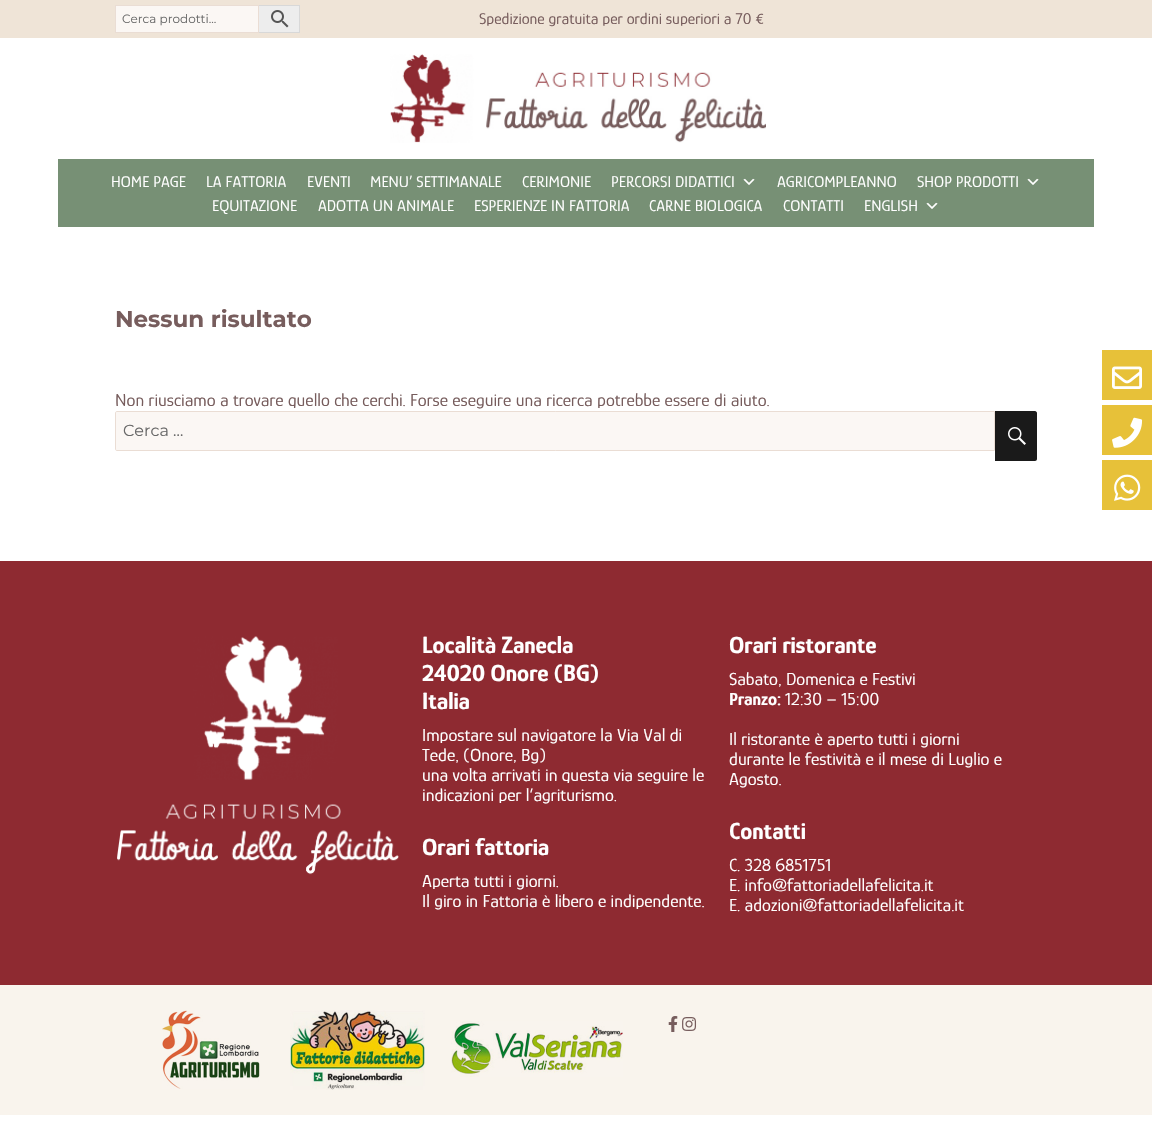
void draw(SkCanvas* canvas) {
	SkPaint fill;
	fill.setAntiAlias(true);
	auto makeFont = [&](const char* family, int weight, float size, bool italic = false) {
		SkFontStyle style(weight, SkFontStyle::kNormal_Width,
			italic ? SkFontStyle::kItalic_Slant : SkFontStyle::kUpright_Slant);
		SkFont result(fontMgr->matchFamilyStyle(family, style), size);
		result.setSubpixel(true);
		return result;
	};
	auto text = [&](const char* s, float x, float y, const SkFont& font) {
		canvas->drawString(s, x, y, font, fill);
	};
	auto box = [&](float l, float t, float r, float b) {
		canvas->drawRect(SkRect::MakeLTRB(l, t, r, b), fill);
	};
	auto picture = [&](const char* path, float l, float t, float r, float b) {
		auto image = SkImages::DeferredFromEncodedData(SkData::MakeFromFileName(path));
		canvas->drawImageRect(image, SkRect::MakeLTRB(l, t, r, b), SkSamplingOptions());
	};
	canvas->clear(0xFFFFFFFF);
	fill.setColor(0xFFEFE4D7);
	box(0, 0, 1152, 38);
	fill.setColor(0xFFEDEDED);
	canvas->drawRect(SkRect::MakeLTRB(258.5f, 5.5f, 299.5f, 32.5f), fill);
	fill.setStyle(SkPaint::kStroke_Style);
	fill.setStrokeWidth(1);
	fill.setColor(0xFFD8D8D8);
	canvas->drawRect(SkRect::MakeLTRB(258.5f, 5.5f, 299.5f, 32.5f), fill);
	fill.setStyle(SkPaint::kFill_Style);
	fill.setColor(0xFFFBF7F4);
	canvas->drawRect(SkRect::MakeLTRB(115.5f, 5.5f, 258.5f, 32.5f), fill);
	fill.setStyle(SkPaint::kStroke_Style);
	fill.setColor(0xFFEADDD4);
	canvas->drawRect(SkRect::MakeLTRB(115.5f, 5.5f, 258.5f, 32.5f), fill);
	picture("image0.png", 271, 10, 289, 28);
	picture("image1.png", 390, 54, 766, 143);
	fill.setStyle(SkPaint::kFill_Style);
	fill.setColor(0xFF779075);
	box(58, 159, 1094, 227);
	picture("image2.png", 743, 178, 755, 185);
	picture("image2.png", 1027, 178, 1039, 185);
	picture("image2.png", 926, 202, 938, 209);
	fill.setColor(0xFFFBF7F4);
	canvas->drawPath(SkPathBuilder().moveTo(117, 411.5f).lineTo(994.5f, 411.5f).lineTo(994.5f, 450.5f).lineTo(117, 450.5f).cubicTo(116, 450.5f, 115.5f, 450, 115.5f, 449).lineTo(115.5f, 413).cubicTo(115.5f, 412, 116, 411.5f, 117, 411.5f).close().detach(), fill);
	fill.setStyle(SkPaint::kStroke_Style);
	fill.setColor(0xFFEADDD4);
	canvas->drawPath(SkPathBuilder().moveTo(117, 411.5f).lineTo(994.5f, 411.5f).lineTo(994.5f, 450.5f).lineTo(117, 450.5f).cubicTo(116, 450.5f, 115.5f, 450, 115.5f, 449).lineTo(115.5f, 413).cubicTo(115.5f, 412, 116, 411.5f, 117, 411.5f).close().detach(), fill);
	fill.setStyle(SkPaint::kFill_Style);
	fill.setColor(0xFF1A1A1A);
	canvas->drawPath(SkPathBuilder().moveTo(995, 411).lineTo(1035, 411).cubicTo(1036, 411, 1037, 412, 1037, 413).lineTo(1037, 459).cubicTo(1037, 460, 1036, 461, 1035, 461).lineTo(995, 461).close().detach(), fill);
	picture("image3.png", 1008, 427, 1026, 445);
	fill.setColor(0xFFE7C139);
	box(1102, 350, 1152, 400);
	picture("image4.png", 1112, 366, 1142, 389);
	box(1102, 405, 1152, 455);
	picture("image5.png", 1112, 417, 1143, 448);
	box(1102, 460, 1152, 510);
	picture("image6.png", 1114, 474, 1141, 501);
	fill.setColor(0xFF8E2A31);
	box(0, 561, 1152, 985);
	picture("image7.png", 117, 636, 399, 875);
	fill.setColor(0xFFF9F4ED);
	box(0, 985, 1152, 1115);
	picture("image8.png", 162, 1010, 260, 1089);
	picture("image9.png", 290, 1010, 425, 1090);
	picture("image10.png", 451, 1021, 623, 1077);
	picture("image11.png", 668, 1016, 678, 1032);
	picture("image12.png", 682, 1017, 697, 1031);
	auto font1 = makeFont("Montserrat", 400, 12);
	fill.setColor(0xFF686868);
	text("Cerca prodotti...", 122, 23, font1);
	auto font2 = makeFont("Glory", 400, 16);
	fill.setColor(0xFF775D5D);
	text("Spedizione gratuita per ordini superiori a 70 €", 479, 24, font2);
	fill.setColor(0xFFFFFFFF);
	text("HOME PAGE", 111, 187, font2);
	text("LA FATTORIA", 206, 187, font2);
	text("EVENTI", 307, 187, font2);
	text("MENU’ SETTIMANALE", 370, 187, font2);
	text("CERIMONIE", 522, 187, font2);
	text("PERCORSI DIDATTICI", 611, 187, font2);
	text("AGRICOMPLEANNO", 777, 187, font2);
	text("SHOP PRODOTTI", 917, 187, font2);
	text("EQUITAZIONE", 212, 211, font2);
	text("ADOTTA UN ANIMALE", 318, 211, font2);
	text("ESPERIENZE IN FATTORIA", 474, 211, font2);
	text("CARNE BIOLOGICA", 649, 211, font2);
	text("CONTATTI", 783, 211, font2);
	text("ENGLISH", 864, 211, font2);
	auto font3 = makeFont("Montserrat", 700, 23);
	fill.setColor(0xFF775D5D);
	text("Nessun risultato", 115, 327, font3);
	auto font4 = makeFont("Glory", 400, 18);
	text("Non riusciamo a trovare quello che cerchi. Forse eseguire una ricerca potrebbe essere di aiuto.", 115, 406, font4);
	auto font5 = makeFont("Montserrat", 400, 16);
	fill.setColor(0xFF686868);
	text("Cerca …", 123, 436, font5);
	auto font6 = makeFont("Glory", 700, 24);
	fill.setColor(0xFFFFFFFF);
	text("Località Zanecla", 422, 653, font6);
	text("24020 Onore (BG)", 422, 681, font6);
	text("Italia", 422, 709, font6);
	text("Impostare sul navigatore la Via Val di", 422, 741, font4);
	text("Tede, (Onore, Bg)", 422, 761, font4);
	text("una volta arrivati in questa via seguire le", 422, 781, font4);
	text("indicazioni per l’agriturismo.", 422, 801, font4);
	text("Orari fattoria", 422, 855, font6);
	text("Aperta tutti i giorni.", 422, 887, font4);
	text("Il giro in Fattoria è libero e indipendente.", 422, 907, font4);
	text("Orari ristorante", 729, 653, font6);
	text("Sabato, Domenica e Festivi", 729, 685, font4);
	auto font7 = makeFont("Glory", 700, 18);
	text("Pranzo:", 729, 705, font7);
	text("12:30 – 15:00", 785, 705, font4);
	text("Il ristorante è aperto tutti i giorni", 729, 745, font4);
	text("durante le festività e il mese di Luglio e", 729, 765, font4);
	text("Agosto.", 729, 785, font4);
	text("Contatti", 729, 839, font6);
	text("C. 328 6851751", 729, 871, font4);
	text("E. info@fattoriadellafelicita.it", 729, 891, font4);
	text("E. adozioni@fattoriadellafelicita.it", 729, 911, font4);
}
